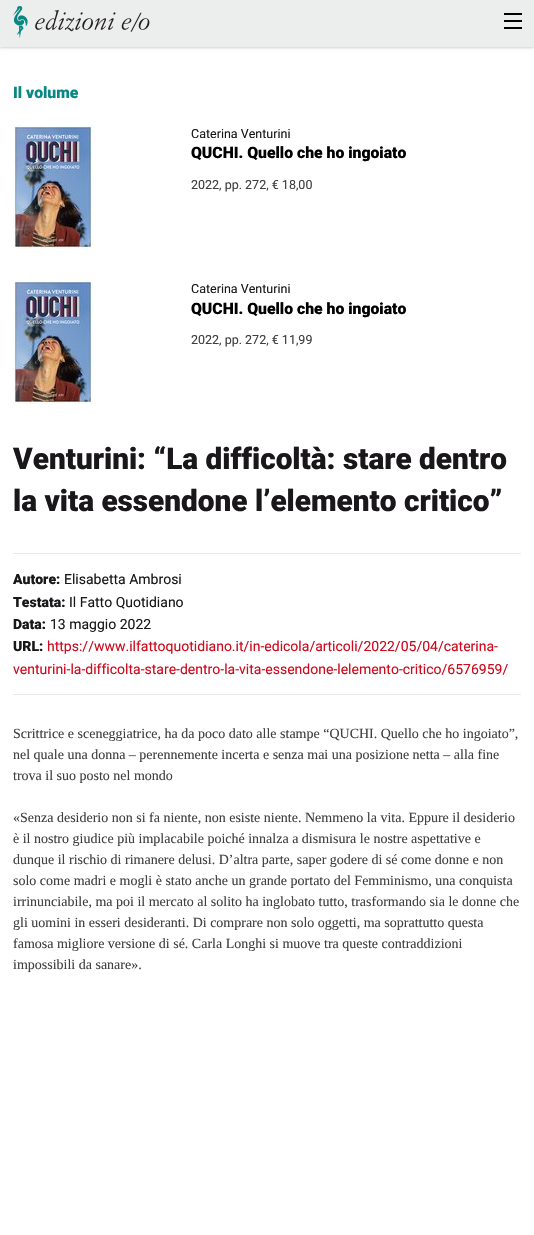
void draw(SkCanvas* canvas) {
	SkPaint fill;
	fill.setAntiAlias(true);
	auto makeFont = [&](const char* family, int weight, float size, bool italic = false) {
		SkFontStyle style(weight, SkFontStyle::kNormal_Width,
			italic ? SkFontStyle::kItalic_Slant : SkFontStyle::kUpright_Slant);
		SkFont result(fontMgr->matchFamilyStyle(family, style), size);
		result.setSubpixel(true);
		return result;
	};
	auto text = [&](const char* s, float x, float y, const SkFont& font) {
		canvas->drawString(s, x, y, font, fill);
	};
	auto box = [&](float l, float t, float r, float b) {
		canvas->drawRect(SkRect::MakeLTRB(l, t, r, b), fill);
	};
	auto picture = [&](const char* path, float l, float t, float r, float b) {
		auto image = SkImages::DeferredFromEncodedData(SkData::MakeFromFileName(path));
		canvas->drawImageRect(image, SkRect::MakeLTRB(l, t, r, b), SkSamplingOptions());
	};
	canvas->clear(0xFFFFFFFF);
	fill.setColor(0x1F000000);
	fill.setMaskFilter(SkMaskFilter::MakeBlur(kNormal_SkBlurStyle, 1));
	canvas->drawRect(SkRect::MakeLTRB(0, 1, 534, 48), fill);
	fill.setMaskFilter(nullptr);
	fill.setColor(0x0F000000);
	fill.setMaskFilter(SkMaskFilter::MakeBlur(kNormal_SkBlurStyle, 1.5f));
	canvas->drawRect(SkRect::MakeLTRB(0, 1, 534, 48), fill);
	fill.setMaskFilter(nullptr);
	fill.setColor(0xFFECEDED);
	box(0, 0, 534, 47);
	picture("image0.png", 13, 6, 150, 38);
	fill.setColor(0xFF000000);
	box(504, 27, 522, 29);
	box(504, 20, 522, 22);
	box(504, 13, 522, 15);
	picture("image1.png", 13, 125, 93, 249);
	picture("image1.png", 13, 280, 93, 404);
	fill.setColor(0xFFE9E9E9);
	box(13, 553, 521, 554);
	box(13, 694, 521, 695);
	auto font1 = makeFont("Roboto", 900, 15.75f);
	fill.setColor(0xFF098782);
	text("Il volume", 13, 98, font1);
	auto font2 = makeFont("Roboto", 400, 12.5f);
	fill.setColor(0xFF1A171B);
	text("Caterina Venturini", 191, 138, font2);
	fill.setColor(0xFF000000);
	text("QUCHI. Quello che ho ingoiato", 191, 158, font1);
	fill.setColor(0xFF3E3F40);
	text("2022, pp. 272, € 18,00", 191, 189, font2);
	fill.setColor(0xFF1A171B);
	text("Caterina Venturini", 191, 293, font2);
	fill.setColor(0xFF000000);
	text("QUCHI. Quello che ho ingoiato", 191, 314, font1);
	fill.setColor(0xFF3E3F40);
	text("2022, pp. 272, € 11,99", 191, 344, font2);
	auto font3 = makeFont("Roboto", 900, 29.75f);
	fill.setColor(0xFF1A171B);
	text("Venturini: “La difficoltà: stare dentro", 13, 469, font3);
	text("la vita essendone l’elemento critico”", 13, 511, font3);
	auto font4 = makeFont("Roboto", 900, 14);
	text("Autore:", 13, 584, font4);
	auto font5 = makeFont("Roboto", 400, 14);
	text("Elisabetta Ambrosi", 64, 584, font5);
	text("Testata:", 13, 607, font4);
	text("Il Fatto Quotidiano", 69, 607, font5);
	text("Data:", 13, 629, font4);
	text("13 maggio 2022", 50, 629, font5);
	text("URL:", 13, 651, font4);
	fill.setColor(0xFFD0091C);
	text("https://www.ilfattoquotidiano.it/in-edicola/articoli/2022/05/04/caterina-", 47, 651, font5);
	text("venturini-la-difficolta-stare-dentro-la-vita-essendone-lelemento-critico/6576959/", 13, 674, font5);
	auto font6 = makeFont("Liberation Serif", 400, 14);
	fill.setColor(0xFF3E3F40);
	text("Scrittrice e sceneggiatrice, ha da poco dato alle stampe “QUCHI. Quello che ho ingoiato”,", 13, 738, font6);
	text("nel quale una donna – perennemente incerta e senza mai una posizione netta – alla fine", 13, 759, font6);
	text("trova il suo posto nel mondo", 13, 780, font6);
	text("«Senza desiderio non si fa niente, non esiste niente. Nemmeno la vita. Eppure il desiderio", 13, 822, font6);
	text("è il nostro giudice più implacabile poiché innalza a dismisura le nostre aspettative e", 13, 843, font6);
	text("dunque il rischio di rimanere delusi. D’altra parte, saper godere di sé come donne e non", 13, 864, font6);
	text("solo come madri e mogli è stato anche un grande portato del Femminismo, una conquista", 13, 885, font6);
	text("irrinunciabile, ma poi il mercato al solito ha inglobato tutto, trasformando sia le donne che", 13, 906, font6);
	text("gli uomini in esseri desideranti. Di comprare non solo oggetti, ma soprattutto questa", 13, 927, font6);
	text("famosa migliore versione di sé. Carla Longhi si muove tra queste contraddizioni", 13, 948, font6);
	text("impossibili da sanare».", 13, 969, font6);
}
